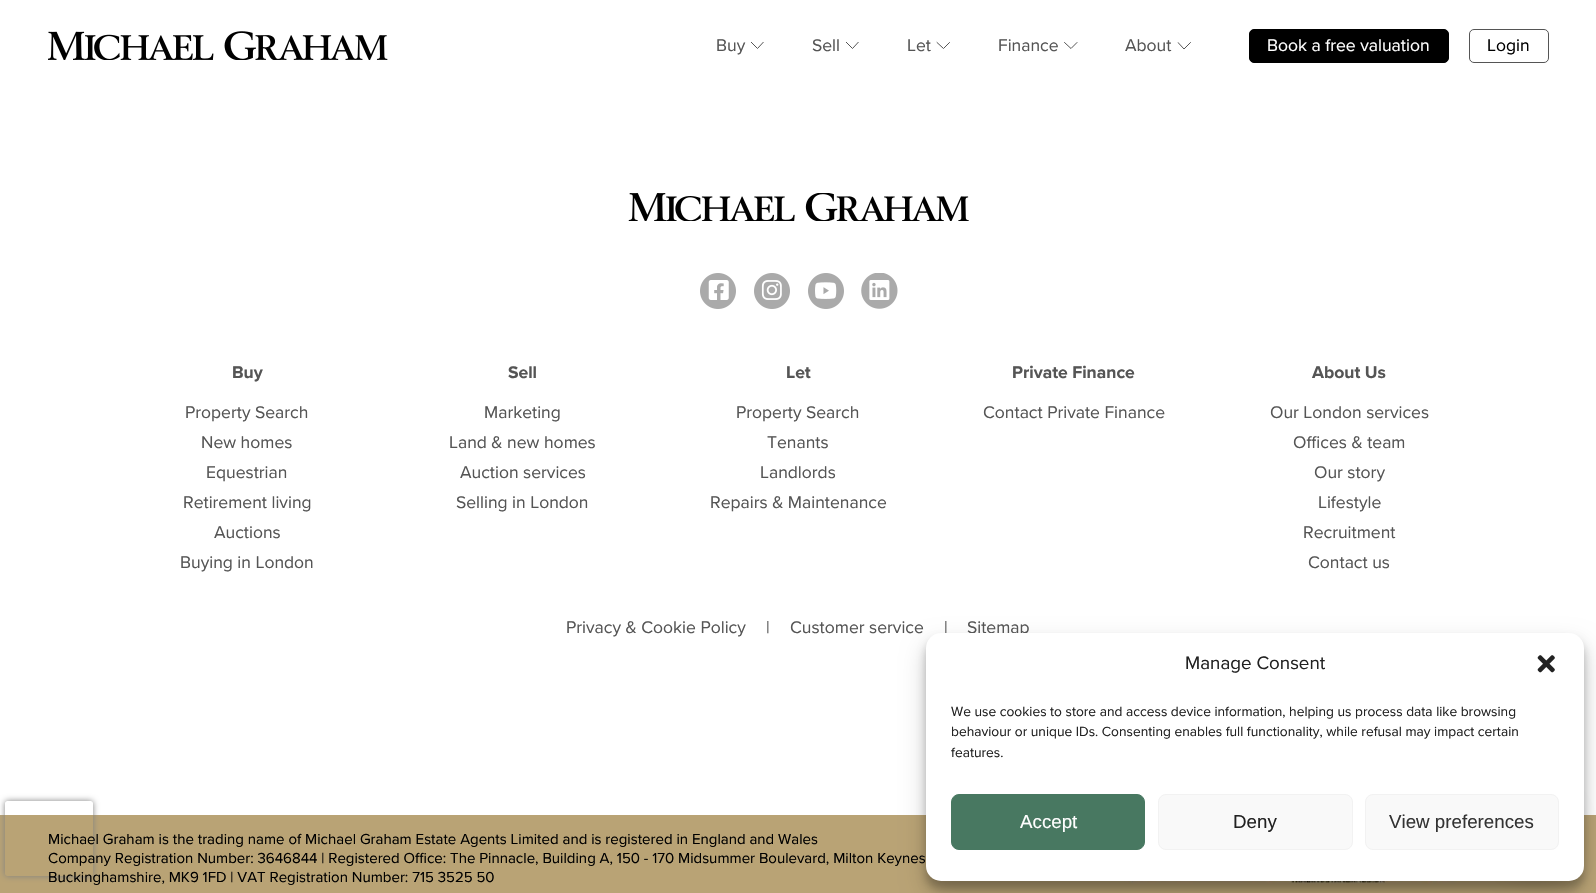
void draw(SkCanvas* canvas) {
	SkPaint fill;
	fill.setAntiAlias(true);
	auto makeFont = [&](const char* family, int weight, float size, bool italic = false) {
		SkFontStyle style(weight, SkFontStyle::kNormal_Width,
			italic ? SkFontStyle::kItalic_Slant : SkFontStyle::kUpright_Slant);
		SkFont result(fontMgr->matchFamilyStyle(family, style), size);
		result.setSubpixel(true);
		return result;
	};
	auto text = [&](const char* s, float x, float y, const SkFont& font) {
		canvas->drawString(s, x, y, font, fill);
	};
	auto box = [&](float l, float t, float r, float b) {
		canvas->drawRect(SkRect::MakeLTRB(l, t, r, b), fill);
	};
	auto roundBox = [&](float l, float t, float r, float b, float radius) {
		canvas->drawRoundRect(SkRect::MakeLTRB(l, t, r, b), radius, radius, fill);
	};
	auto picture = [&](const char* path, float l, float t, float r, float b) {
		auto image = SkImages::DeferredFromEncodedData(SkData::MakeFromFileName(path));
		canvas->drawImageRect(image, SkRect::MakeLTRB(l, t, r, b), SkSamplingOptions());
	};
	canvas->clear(0xFFFFFFFF);
	picture("image0.png", 48, 31, 388, 60);
	canvas->save();
	canvas->clipPath(SkPathBuilder().moveTo(765.5f, 42).lineTo(765.5f, 49.5f).lineTo(750.5f, 49.5f).lineTo(750.5f, 42).close().detach(), true);
	fill.setStyle(SkPaint::kStroke_Style);
	fill.setStrokeWidth(1);
	fill.setStrokeCap(SkPaint::kRound_Cap);
	fill.setStrokeJoin(SkPaint::kRound_Join);
	fill.setColor(0xFF555555);
	canvas->drawPath(SkPathBuilder().moveTo(751, 42).lineTo(757.5f, 48.5f).lineTo(763.5f, 42).detach(), fill);
	canvas->restore();
	canvas->save();
	canvas->clipPath(SkPathBuilder().moveTo(860.5f, 42).lineTo(860.5f, 49.5f).lineTo(845.5f, 49.5f).lineTo(845.5f, 42).close().detach(), true);
	canvas->drawPath(SkPathBuilder().moveTo(846, 42).lineTo(852.5f, 48.5f).lineTo(858.5f, 42).detach(), fill);
	canvas->restore();
	canvas->drawPath(SkPathBuilder().moveTo(937, 42.5f).lineTo(943.5f, 48.5f).lineTo(949.5f, 42.5f).detach(), fill);
	canvas->drawPath(SkPathBuilder().moveTo(1064.5f, 42.5f).lineTo(1071, 48.5f).lineTo(1077, 42.5f).detach(), fill);
	canvas->save();
	canvas->clipPath(SkPathBuilder().moveTo(1192.5f, 42).lineTo(1192.5f, 49.5f).lineTo(1177.5f, 49.5f).lineTo(1177.5f, 42).close().detach(), true);
	canvas->drawPath(SkPathBuilder().moveTo(1178, 42.5f).lineTo(1184, 49).lineTo(1190.5f, 42.5f).detach(), fill);
	canvas->restore();
	fill.setStyle(SkPaint::kFill_Style);
	fill.setColor(0xFF000000);
	canvas->drawRoundRect(SkRect::MakeLTRB(1249.5f, 29.5f, 1448.5f, 62.5f), 4.5f, 4.5f, fill);
	fill.setStyle(SkPaint::kStroke_Style);
	fill.setStrokeCap(SkPaint::kButt_Cap);
	fill.setStrokeJoin(SkPaint::kMiter_Join);
	canvas->drawRoundRect(SkRect::MakeLTRB(1249.5f, 29.5f, 1448.5f, 62.5f), 4.5f, 4.5f, fill);
	fill.setColor(0xFF555555);
	canvas->drawRoundRect(SkRect::MakeLTRB(1469.5f, 29.5f, 1548.5f, 62.5f), 4.5f, 4.5f, fill);
	picture("image1.png", 628, 193, 969, 221);
	picture("image2.png", 700, 273, 736, 309);
	picture("image3.png", 754, 273, 790, 309);
	picture("image4.png", 808, 273, 844, 309);
	picture("image5.png", 861, 273, 898, 309);
	fill.setStyle(SkPaint::kFill_Style);
	fill.setColor(0xFFB9A375);
	box(0, 815, 1596, 893);
	picture("image7.png", 1124, 881, 1549, 884);
	fill.setColor(0x3B000000);
	fill.setMaskFilter(SkMaskFilter::MakeBlur(kNormal_SkBlurStyle, 4));
	canvas->drawRoundRect(SkRect::MakeLTRB(926, 640, 1584, 889), 15, 15, fill);
	fill.setMaskFilter(nullptr);
	fill.setColor(0x30000000);
	fill.setMaskFilter(SkMaskFilter::MakeBlur(kNormal_SkBlurStyle, 12.5f));
	canvas->drawRoundRect(SkRect::MakeLTRB(926, 645, 1584, 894), 15, 15, fill);
	fill.setMaskFilter(nullptr);
	canvas->save();
	canvas->clipPath(SkPathBuilder(SkPathFillType::kEvenOdd).moveTo(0, 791).lineTo(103, 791).lineTo(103, 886).lineTo(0, 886).close().moveTo(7.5f, 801).lineTo(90.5f, 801).cubicTo(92, 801, 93, 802, 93, 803.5f).lineTo(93, 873.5f).cubicTo(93, 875, 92, 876, 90.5f, 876).lineTo(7.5f, 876).cubicTo(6, 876, 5, 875, 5, 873.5f).lineTo(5, 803.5f).cubicTo(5, 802, 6, 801, 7.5f, 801).close().detach(), true);
	fill.setColor(0xFF808080);
	fill.setMaskFilter(SkMaskFilter::MakeBlur(kNormal_SkBlurStyle, 3));
	canvas->drawRoundRect(SkRect::MakeLTRB(5, 801, 93, 876), 2.5f, 2.5f, fill);
	fill.setMaskFilter(nullptr);
	canvas->restore();
	fill.setColor(0x33000000);
	fill.setMaskFilter(SkMaskFilter::MakeBlur(kNormal_SkBlurStyle, 12));
	canvas->drawRoundRect(SkRect::MakeLTRB(1496, 799, 1571, 874), 37.5f, 37.5f, fill);
	fill.setMaskFilter(nullptr);
	auto font1 = makeFont("Proxima Nova", 400, 17.5f);
	fill.setColor(0xFF555555);
	text("Buy", 716, 51, font1);
	text("Sell", 812, 51, font1);
	text("Let", 907, 51, font1);
	text("Finance", 998, 51, font1);
	text("About", 1125, 51, font1);
	fill.setColor(0xFFFFFFFF);
	text("Book a free valuation", 1267, 51, font1);
	fill.setColor(0xFF000000);
	text("Login", 1487, 51, font1);
	auto font2 = makeFont("Proxima Nova", 700, 17.5f);
	fill.setColor(0xFF555555);
	text("Buy", 232, 378, font2);
	text("Property Search", 185, 418, font1);
	text("New homes", 201, 448, font1);
	text("Equestrian", 206, 478, font1);
	text("Retirement living", 183, 508, font1);
	text("Auctions", 214, 538, font1);
	text("Buying in London", 180, 568, font1);
	text("Sell", 508, 378, font2);
	text("Marketing", 484, 418, font1);
	text("Land & new homes", 449, 448, font1);
	text("Auction services", 460, 478, font1);
	text("Selling in London", 456, 508, font1);
	text("Let", 786, 378, font2);
	text("Property Search", 736, 418, font1);
	text("Tenants", 767, 448, font1);
	text("Landlords", 760, 478, font1);
	text("Repairs & Maintenance", 710, 508, font1);
	text("Private Finance", 1012, 378, font2);
	text("Contact Private Finance", 983, 418, font1);
	text("About Us", 1312, 378, font2);
	text("Our London services", 1270, 418, font1);
	text("Offices & team", 1293, 448, font1);
	text("Our story", 1314, 478, font1);
	text("Lifestyle", 1318, 508, font1);
	text("Recruitment", 1303, 538, font1);
	text("Contact us", 1308, 568, font1);
	text("Privacy & Cookie Policy", 566, 633, font1);
	text("|", 766, 633, font1);
	text("Customer service", 790, 633, font1);
	text("|", 944, 633, font1);
	text("Sitemap", 967, 633, font1);
	fill.setColor(0xFFFFFFFF);
	roundBox(926, 633, 1584, 881, 15);
	auto font3 = makeFont("Proxima Nova", 400, 18.75f);
	fill.setColor(0xFF222222);
	text("Manage Consent", 1185, 669, font3);
	picture("image6.png", 1537, 655, 1555, 673);
	auto font4 = makeFont("Proxima Nova", 400, 13.75f);
	text("We use cookies to store and access device information, helping us process data like browsing", 951, 716, font4);
	text("behaviour or unique IDs. Consenting enables full functionality, while refusal may impact certain", 951, 736, font4);
	text("features.", 951, 757, font4);
	fill.setColor(0xFF487861);
	canvas->drawRoundRect(SkRect::MakeLTRB(951.5f, 794.5f, 1144.5f, 849.5f), 7.5f, 7.5f, fill);
	fill.setStyle(SkPaint::kStroke_Style);
	canvas->drawRoundRect(SkRect::MakeLTRB(951.5f, 794.5f, 1144.5f, 849.5f), 7.5f, 7.5f, fill);
	auto font5 = makeFont("Liberation Sans", 400, 18.75f);
	fill.setStyle(SkPaint::kFill_Style);
	fill.setColor(0xFFFFFFFF);
	text("Accept", 1020, 828, font5);
	fill.setColor(0xFFF9F9F9);
	canvas->drawRoundRect(SkRect::MakeLTRB(1158.5f, 794.5f, 1352.5f, 849.5f), 7.5f, 7.5f, fill);
	fill.setStyle(SkPaint::kStroke_Style);
	fill.setColor(0xFFF2F2F2);
	canvas->drawRoundRect(SkRect::MakeLTRB(1158.5f, 794.5f, 1352.5f, 849.5f), 7.5f, 7.5f, fill);
	fill.setStyle(SkPaint::kFill_Style);
	fill.setColor(0xFF222222);
	text("Deny", 1233, 828, font5);
	fill.setColor(0xFFF9F9F9);
	canvas->drawRoundRect(SkRect::MakeLTRB(1365.5f, 794.5f, 1558.5f, 849.5f), 7.5f, 7.5f, fill);
	fill.setStyle(SkPaint::kStroke_Style);
	fill.setColor(0xFFF2F2F2);
	canvas->drawRoundRect(SkRect::MakeLTRB(1365.5f, 794.5f, 1558.5f, 849.5f), 7.5f, 7.5f, fill);
	fill.setStyle(SkPaint::kFill_Style);
	fill.setColor(0xFF333333);
	text("View preferences", 1389, 828, font5);
	auto font6 = makeFont("Proxima Nova", 400, 15);
	fill.setColor(0xFF000000);
	text("Michael Graham is the trading name of Michael Graham Estate Agents Limited and is registered in England and Wales", 48, 844, font6);
	text("Company Registration Number: 3646844 | Registered Office: The Pinnacle, Building A, 150 - 170 Midsummer Boulevard, Milton Keynes", 48, 863, font6);
	text("Buckinghamshire, MK9 1FD | VAT Registration Number: 715 3525 50", 48, 882, font6);
}
